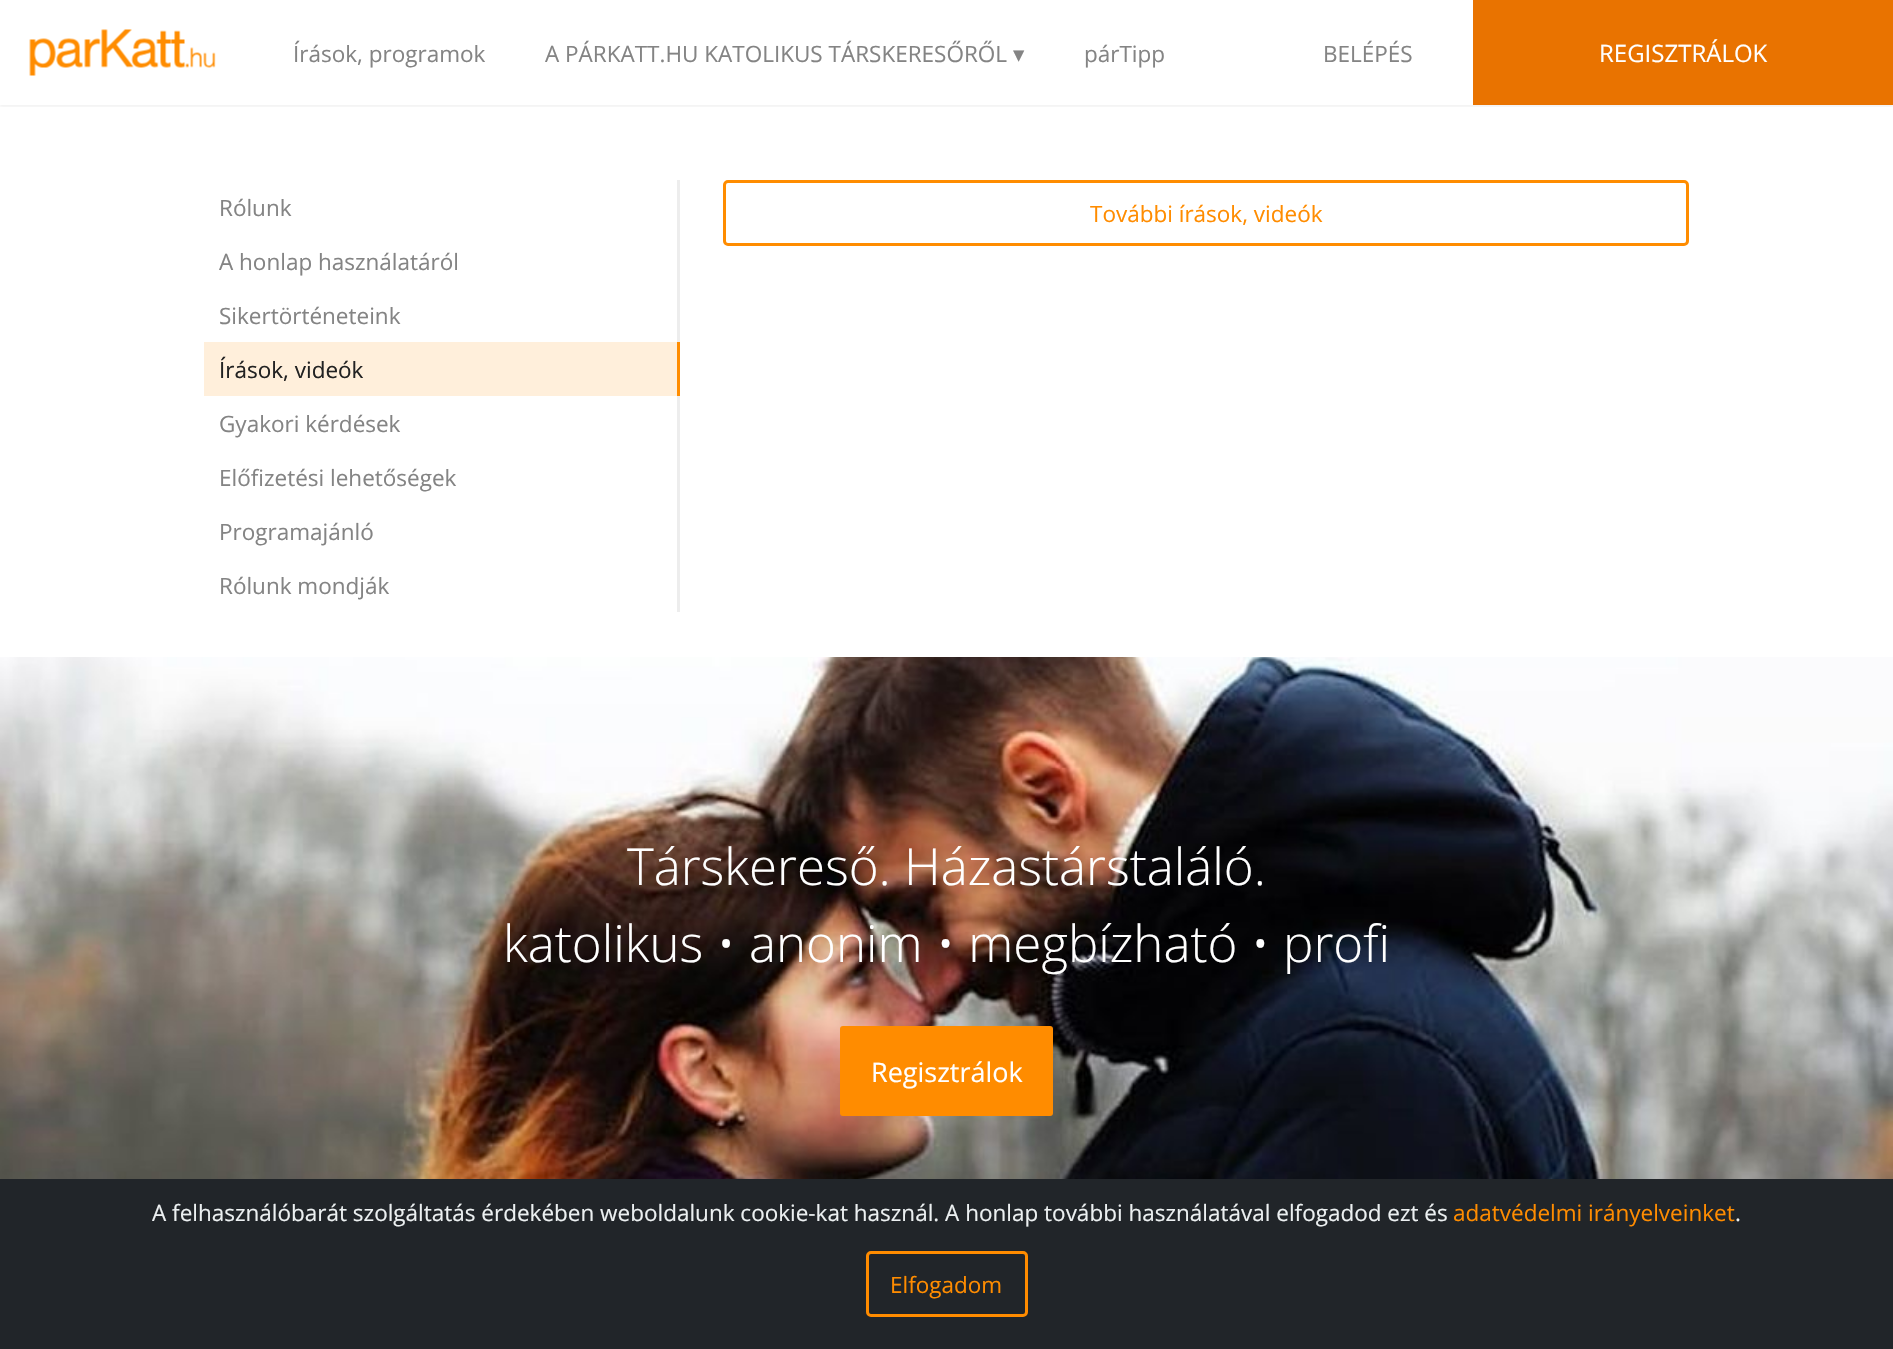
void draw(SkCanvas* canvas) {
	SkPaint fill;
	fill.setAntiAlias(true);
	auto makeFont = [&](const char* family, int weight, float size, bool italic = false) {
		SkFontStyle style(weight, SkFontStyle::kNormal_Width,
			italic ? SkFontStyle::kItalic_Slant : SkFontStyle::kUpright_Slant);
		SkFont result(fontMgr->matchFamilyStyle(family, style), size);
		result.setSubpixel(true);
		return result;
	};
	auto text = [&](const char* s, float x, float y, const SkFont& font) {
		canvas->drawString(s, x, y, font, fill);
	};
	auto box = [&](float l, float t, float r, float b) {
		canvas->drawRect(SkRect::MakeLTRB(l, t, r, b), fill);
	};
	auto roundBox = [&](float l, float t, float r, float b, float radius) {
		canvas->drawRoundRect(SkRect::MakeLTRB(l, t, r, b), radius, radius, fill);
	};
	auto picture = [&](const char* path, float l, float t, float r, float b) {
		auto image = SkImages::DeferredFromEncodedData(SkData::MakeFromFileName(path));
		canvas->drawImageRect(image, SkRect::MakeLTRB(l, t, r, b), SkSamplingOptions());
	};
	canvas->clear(0xFFFFFFFF);
	canvas->save();
	canvas->clipRect(SkRect::MakeLTRB(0, 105, 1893, 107));
	fill.setColor(0x0D000000);
	fill.setMaskFilter(SkMaskFilter::MakeBlur(kNormal_SkBlurStyle, 1.5f));
	canvas->drawRect(SkRect::MakeLTRB(0, 2, 1893, 107), fill);
	fill.setMaskFilter(nullptr);
	canvas->restore();
	picture("image0.png", 29, 29, 216, 76);
	fill.setColor(0xFFE97300);
	box(1473, 0, 1893, 105);
	fill.setColor(0xFFEDEDED);
	box(677, 180, 680, 342);
	fill.setColor(0xFFFFEFDB);
	box(204, 342, 677, 396);
	fill.setColor(0xFFFF8C00);
	box(677, 342, 680, 396);
	fill.setColor(0xFFEDEDED);
	box(677, 396, 680, 612);
	fill.setStyle(SkPaint::kStroke_Style);
	fill.setStrokeWidth(3);
	fill.setColor(0xFFFF8C00);
	canvas->drawRoundRect(SkRect::MakeLTRB(724.5f, 181.5f, 1687.5f, 244.5f), 3.5f, 3.5f, fill);
	picture("image1.png", 0, 657, 1893, 1179);
	fill.setStyle(SkPaint::kFill_Style);
	roundBox(840, 1026, 1053, 1116, 3);
	fill.setColor(0xFF212529);
	box(0, 1179, 1893, 1349);
	fill.setStyle(SkPaint::kStroke_Style);
	fill.setColor(0xFFFF8C00);
	canvas->drawRoundRect(SkRect::MakeLTRB(867.5f, 1252.5f, 1026.5f, 1315.5f), 3.5f, 3.5f, fill);
	auto font1 = makeFont("Open Sans", 400, 22.5f);
	fill.setStyle(SkPaint::kFill_Style);
	fill.setColor(0xFF848484);
	text("Írások, programok", 293, 62, font1);
	text("A PÁRKATT.HU KATOLIKUS TÁRSKERESŐRŐL", 545, 62, font1);
	auto font2 = makeFont("DejaVu Sans", 400, 22.5f);
	text("▾", 1013, 62, font2);
	text("párTipp", 1084, 62, font1);
	text("BELÉPÉS", 1323, 62, font1);
	auto font3 = makeFont("Open Sans", 400, 24);
	fill.setColor(0xFFFFFFFF);
	text("REGISZTRÁLOK", 1599, 62, font3);
	fill.setColor(0xFF848484);
	text("Rólunk", 219, 216, font1);
	text("A honlap használatáról", 219, 270, font1);
	text("Sikertörténeteink", 219, 324, font1);
	fill.setColor(0xFF222222);
	text("Írások, videók", 219, 378, font1);
	fill.setColor(0xFF848484);
	text("Gyakori kérdések", 219, 432, font1);
	text("Előfizetési lehetőségek", 219, 486, font1);
	text("Programajánló", 219, 540, font1);
	text("Rólunk mondják", 219, 594, font1);
	fill.setColor(0xFFFF8C00);
	text("További írások, videók", 1090, 222, font1);
	auto font4 = makeFont("Open Sans", 300, 51);
	fill.setColor(0xFFFFFFFF);
	text("Társkereső. Házastárstaláló.", 627, 885, font4);
	text("katolikus • anonim • megbízható • profi", 503, 962, font4);
	auto font5 = makeFont("Open Sans", 400, 27);
	text("Regisztrálok", 871, 1082, font5);
	fill.setColor(0xFFECF0F1);
	text("A felhasználóbarát szolgáltatás érdekében weboldalunk cookie-kat használ. A honlap további használatával elfogadod ezt és", 152, 1221, font1);
	fill.setColor(0xFFFF8C00);
	text("adatvédelmi irányelveinket", 1453, 1221, font1);
	fill.setColor(0xFFECF0F1);
	text(".", 1735, 1221, font1);
	fill.setColor(0xFFFF8C00);
	text("Elfogadom", 890, 1293, font1);
}
